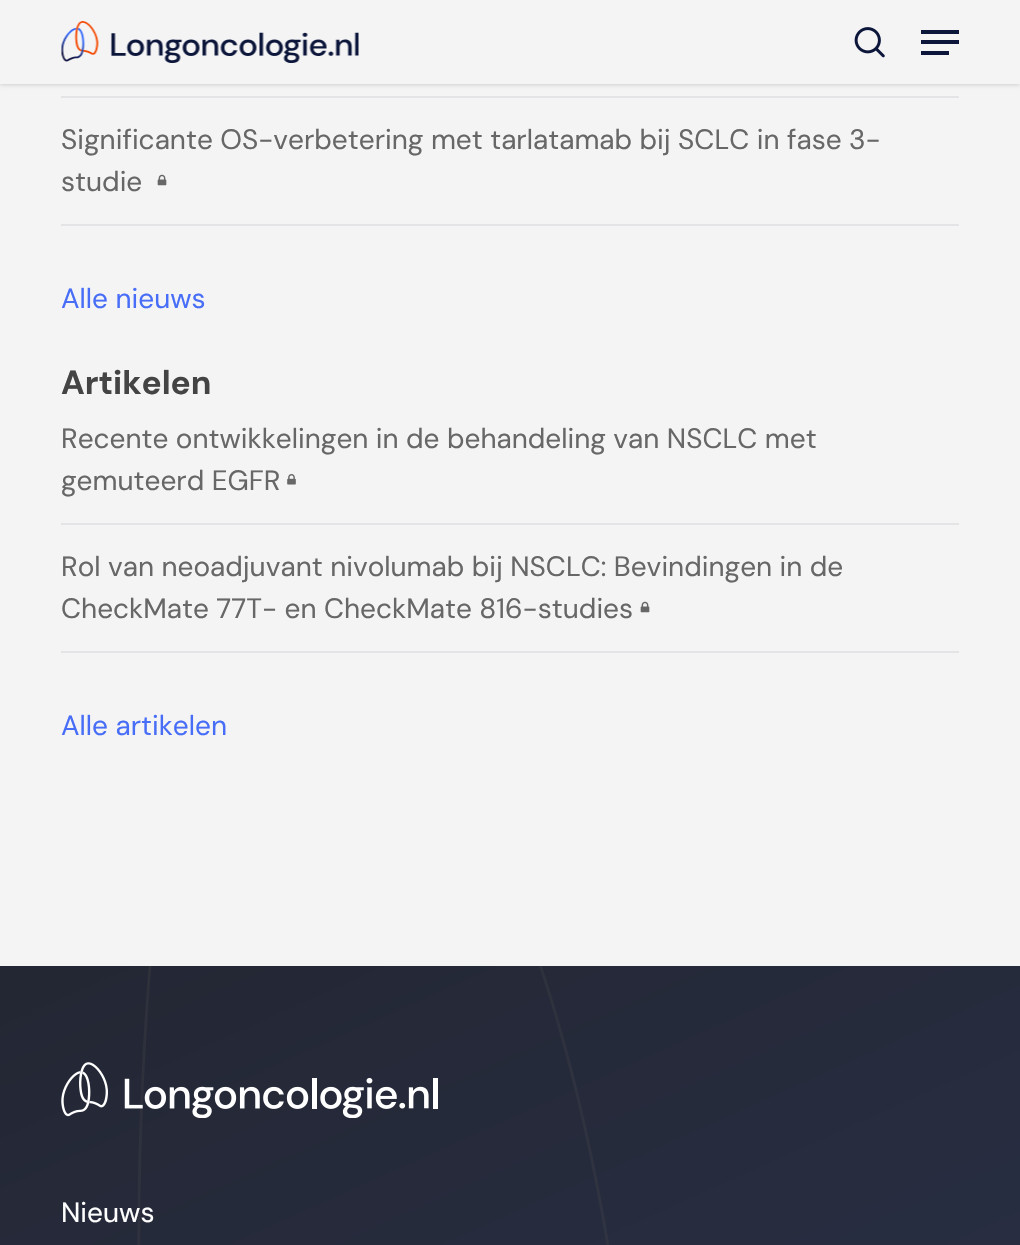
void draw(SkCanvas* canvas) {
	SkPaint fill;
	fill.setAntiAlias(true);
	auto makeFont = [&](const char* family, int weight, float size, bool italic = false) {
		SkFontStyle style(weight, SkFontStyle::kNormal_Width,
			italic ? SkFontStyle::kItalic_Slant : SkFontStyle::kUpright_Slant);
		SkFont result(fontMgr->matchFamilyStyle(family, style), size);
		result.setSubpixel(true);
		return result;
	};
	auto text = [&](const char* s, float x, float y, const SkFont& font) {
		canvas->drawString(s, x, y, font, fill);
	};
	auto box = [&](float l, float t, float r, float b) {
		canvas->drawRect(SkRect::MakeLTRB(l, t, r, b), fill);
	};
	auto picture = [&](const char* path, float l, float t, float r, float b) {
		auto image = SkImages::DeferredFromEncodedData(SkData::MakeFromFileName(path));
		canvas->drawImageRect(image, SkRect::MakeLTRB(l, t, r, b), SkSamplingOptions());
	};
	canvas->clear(0xFFF4F4F5);
	fill.setColor(0x38000000);
	fill.setMaskFilter(SkMaskFilter::MakeBlur(kNormal_SkBlurStyle, 2.5f));
	canvas->drawRect(SkRect::MakeLTRB(0, 0, 1020, 84), fill);
	fill.setMaskFilter(nullptr);
	fill.setColor(0xFFF4F4F5);
	box(0, 0, 1020, 84);
	picture("image0.png", 61, 21, 359, 63);
	picture("image1.png", 854, 27, 885, 58);
	fill.setColor(0xFF0C163A);
	box(921, 30, 959, 34);
	box(921, 51, 949, 55);
	box(921, 40, 959, 44);
	fill.setColor(0xFFE4E4E7);
	box(61, 96, 959, 98);
	box(61, 224, 959, 226);
	picture("image2.png", 157, 174, 167, 186);
	box(61, 523, 959, 525);
	picture("image3.png", 287, 474, 296, 485);
	box(61, 651, 959, 653);
	picture("image2.png", 640, 601, 650, 613);
	picture("image4.png", 0, 966, 1020, 1245);
	picture("image5.png", 61, 1062, 438, 1118);
	auto font1 = makeFont("DM Sans", 400, 28);
	fill.setColor(0xFF676767);
	text("Significante OS-verbetering met tarlatamab bij SCLC in fase 3-", 61, 149, font1);
	text("studie", 61, 191, font1);
	fill.setColor(0xFF486EF8);
	text("Alle nieuws", 61, 308, font1);
	auto font2 = makeFont("DM Sans", 700, 33.5f);
	fill.setColor(0xFF444444);
	text("Artikelen", 61, 394, font2);
	fill.setColor(0xFF676767);
	text("Recente ontwikkelingen in de behandeling van NSCLC met", 61, 448, font1);
	text("gemuteerd EGFR", 61, 490, font1);
	text("Rol van neoadjuvant nivolumab bij NSCLC: Bevindingen in de", 61, 576, font1);
	text("CheckMate 77T- en CheckMate 816-studies", 61, 618, font1);
	fill.setColor(0xFF486EF8);
	text("Alle artikelen", 61, 735, font1);
	fill.setColor(0xFFFFFFFF);
	text("Nieuws", 61, 1222, font1);
}
